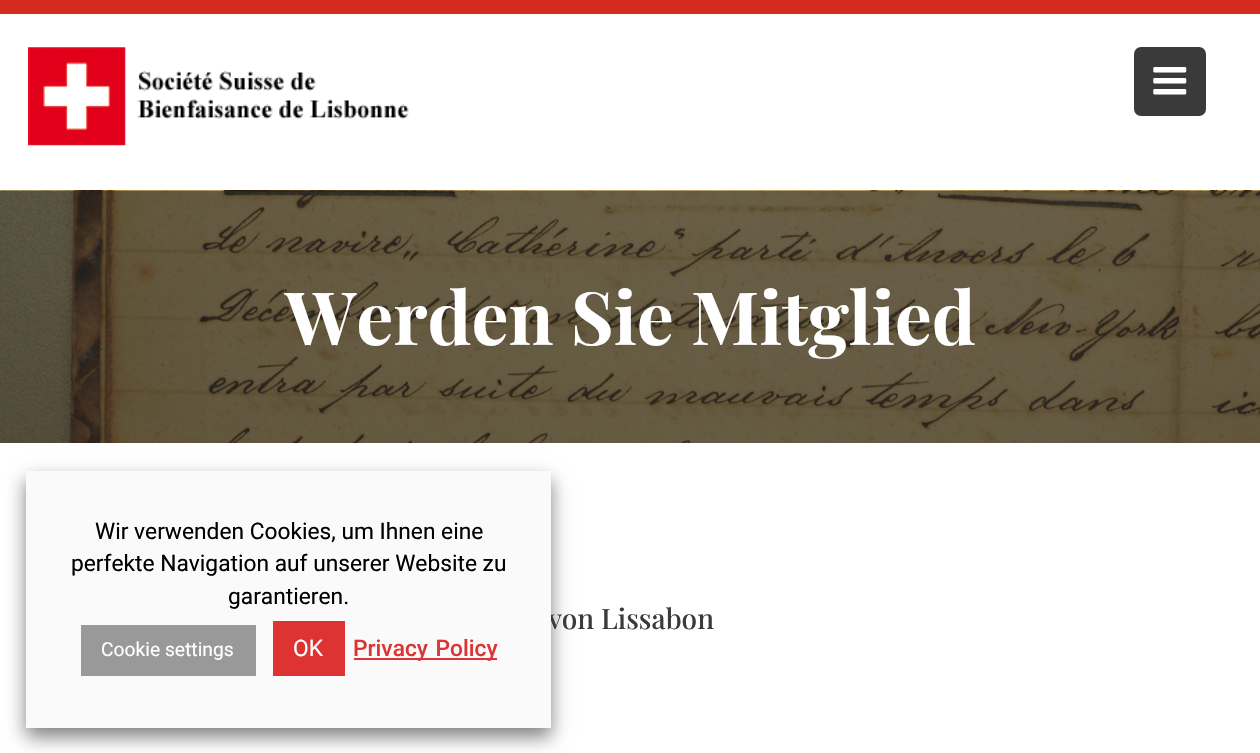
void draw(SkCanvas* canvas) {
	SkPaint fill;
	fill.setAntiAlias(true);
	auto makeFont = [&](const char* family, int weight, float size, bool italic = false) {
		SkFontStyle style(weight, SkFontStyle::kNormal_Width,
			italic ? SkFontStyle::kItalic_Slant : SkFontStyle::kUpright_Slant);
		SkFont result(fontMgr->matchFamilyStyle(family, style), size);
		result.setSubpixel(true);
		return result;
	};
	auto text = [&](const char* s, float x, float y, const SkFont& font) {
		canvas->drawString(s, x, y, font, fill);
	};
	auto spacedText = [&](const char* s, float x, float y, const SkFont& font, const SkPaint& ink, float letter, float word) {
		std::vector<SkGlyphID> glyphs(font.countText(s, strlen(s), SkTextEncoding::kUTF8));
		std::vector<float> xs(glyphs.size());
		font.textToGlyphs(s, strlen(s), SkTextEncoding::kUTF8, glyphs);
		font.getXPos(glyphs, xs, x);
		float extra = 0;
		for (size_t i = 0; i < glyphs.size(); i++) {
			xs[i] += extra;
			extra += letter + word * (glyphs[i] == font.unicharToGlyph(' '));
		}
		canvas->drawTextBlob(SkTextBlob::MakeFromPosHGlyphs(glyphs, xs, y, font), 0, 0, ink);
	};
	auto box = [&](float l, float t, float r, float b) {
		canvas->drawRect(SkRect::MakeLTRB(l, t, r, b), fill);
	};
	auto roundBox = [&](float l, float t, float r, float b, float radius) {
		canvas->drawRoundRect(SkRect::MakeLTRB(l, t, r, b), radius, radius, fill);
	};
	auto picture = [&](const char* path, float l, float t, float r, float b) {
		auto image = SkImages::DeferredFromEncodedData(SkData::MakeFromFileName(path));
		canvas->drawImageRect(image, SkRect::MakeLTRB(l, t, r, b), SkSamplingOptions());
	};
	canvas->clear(0xFFFFFFFF);
	fill.setColor(0xFFD52B1E);
	box(0, 0, 1260, 14);
	picture("image0.png", 28, 47, 409, 146);
	fill.setColor(0xFF3A3A3A);
	roundBox(1134, 47, 1206, 116, 7);
	picture("image1.png", 1153, 67, 1187, 95);
	picture("image2.png", 0, 190, 1260, 443);
	fill.setColor(0x80000000);
	fill.setMaskFilter(SkMaskFilter::MakeBlur(kNormal_SkBlurStyle, 9));
	canvas->drawRect(SkRect::MakeLTRB(26, 480, 551, 737), fill);
	fill.setMaskFilter(nullptr);
	auto font1 = makeFont("Playfair Display", 700, 73.5f);
	fill.setColor(0xFFFFFFFF);
	text("Werden Sie Mitglied", 285, 345, font1);
	auto font2 = makeFont("Playfair Display", 500, 28);
	fill.setColor(0xFF3A3A3A);
	text("von Lissabon", 548, 629, font2);
	fill.setColor(0xFFFAFAFA);
	box(26, 471, 551, 728);
	auto font3 = makeFont("Roboto", 400, 22.75f);
	fill.setColor(0xFF000000);
	text("Wir verwenden Cookies, um Ihnen eine", 95, 539, font3);
	text("perfekte Navigation auf unserer Website zu", 71, 571, font3);
	text("garantieren.", 228, 604, font3);
	fill.setColor(0xFF999999);
	box(81, 625, 256, 676);
	auto font4 = makeFont("Roboto", 400, 19.25f);
	fill.setColor(0xFFFFFFFF);
	text("Cookie settings", 101, 656, font4);
	fill.setColor(0xFFDD3333);
	box(273, 621, 345, 676);
	fill.setColor(0xFFFFFFFF);
	text("OK", 293, 656, font3);
	fill.setColor(0xFFDD3333);
	box(354, 658, 497, 660);
	auto font5 = makeFont("Roboto", 500, 22.75f);
	spacedText("Privacy Policy", 353, 656, font5, fill, 0, 2);
}
